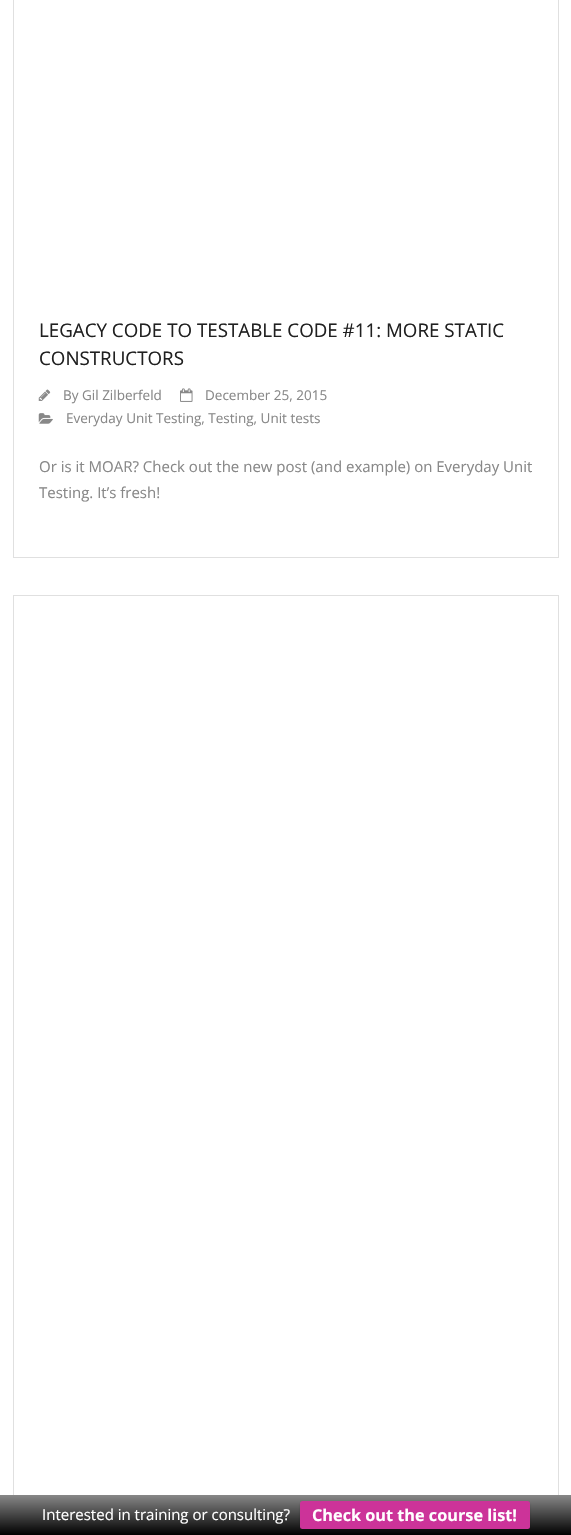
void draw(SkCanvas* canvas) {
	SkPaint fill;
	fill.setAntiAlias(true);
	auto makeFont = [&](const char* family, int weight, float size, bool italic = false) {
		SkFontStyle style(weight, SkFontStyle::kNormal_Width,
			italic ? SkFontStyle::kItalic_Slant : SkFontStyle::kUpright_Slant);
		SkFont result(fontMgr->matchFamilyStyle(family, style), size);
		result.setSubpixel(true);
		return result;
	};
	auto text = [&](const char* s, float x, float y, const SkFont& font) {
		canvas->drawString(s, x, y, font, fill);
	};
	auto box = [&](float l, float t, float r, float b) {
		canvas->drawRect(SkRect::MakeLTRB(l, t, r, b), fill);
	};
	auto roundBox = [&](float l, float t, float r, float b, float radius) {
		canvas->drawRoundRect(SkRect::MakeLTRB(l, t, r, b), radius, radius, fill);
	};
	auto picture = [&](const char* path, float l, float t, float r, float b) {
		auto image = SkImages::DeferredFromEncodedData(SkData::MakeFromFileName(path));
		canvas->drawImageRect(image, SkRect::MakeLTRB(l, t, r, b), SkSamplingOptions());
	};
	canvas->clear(0xFFFFFFFF);
	fill.setStyle(SkPaint::kStroke_Style);
	fill.setStrokeWidth(1);
	fill.setColor(0xFFE0E0E0);
	canvas->drawRect(SkRect::MakeLTRB(13.5f, -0.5f, 558.5f, 557.5f), fill);
	picture("image0.png", 38, 389, 51, 401);
	picture("image1.png", 180, 388, 193, 402);
	picture("image2.png", 38, 413, 53, 424);
	canvas->drawRect(SkRect::MakeLTRB(13.5f, 595.5f, 558.5f, 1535.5f), fill);
	fill.setStyle(SkPaint::kFill_Style);
	{
		const SkColor colors[] = {0xFF888888, 0xFF000000};
		const float stops[] = {0, 1};
		const SkPoint ends[] = {{286, 1495}, {286, 1535}};
		fill.setShader(SkGradientShader::MakeLinear(ends, colors, stops, 2, SkTileMode::kClamp));
		fill.setAlpha(255);
	}
	box(0, 1495, 571, 1535);
	fill.setShader(nullptr);
	fill.setColor(0x33000000);
	fill.setMaskFilter(SkMaskFilter::MakeBlur(kNormal_SkBlurStyle, 1));
	canvas->drawRoundRect(SkRect::MakeLTRB(300, 1503, 530, 1530), 2.5f, 2.5f, fill);
	fill.setMaskFilter(nullptr);
	fill.setColor(0xFFCC3399);
	roundBox(300, 1501, 530, 1529, 2.5f);
	auto font1 = makeFont("Open Sans", 400, 18.75f);
	fill.setColor(0xFF202020);
	text("LEGACY CODE TO TESTABLE CODE #11: MORE STATIC", 39, 337, font1);
	text("CONSTRUCTORS", 39, 365, font1);
	auto font2 = makeFont("Open Sans", 400, 13.5f);
	fill.setColor(0xFF888888);
	text("By Gil Zilberfeld", 63, 400, font2);
	text("December 25, 2015", 205, 400, font2);
	text("Everyday Unit Testing, Testing, Unit tests", 66, 423, font2);
	auto font3 = makeFont("Open Sans", 400, 15);
	text("Or is it MOAR? Check out the new post (and example) on Everyday Unit", 39, 472, font3);
	text("Testing. It’s fresh!", 39, 498, font3);
	fill.setColor(0xFFFFFFFF);
	text("Interested in training or consulting?", 42, 1520, font3);
	auto font4 = makeFont("Open Sans", 700, 16.25f);
	text("Check out the course list!", 312, 1521, font4);
}
